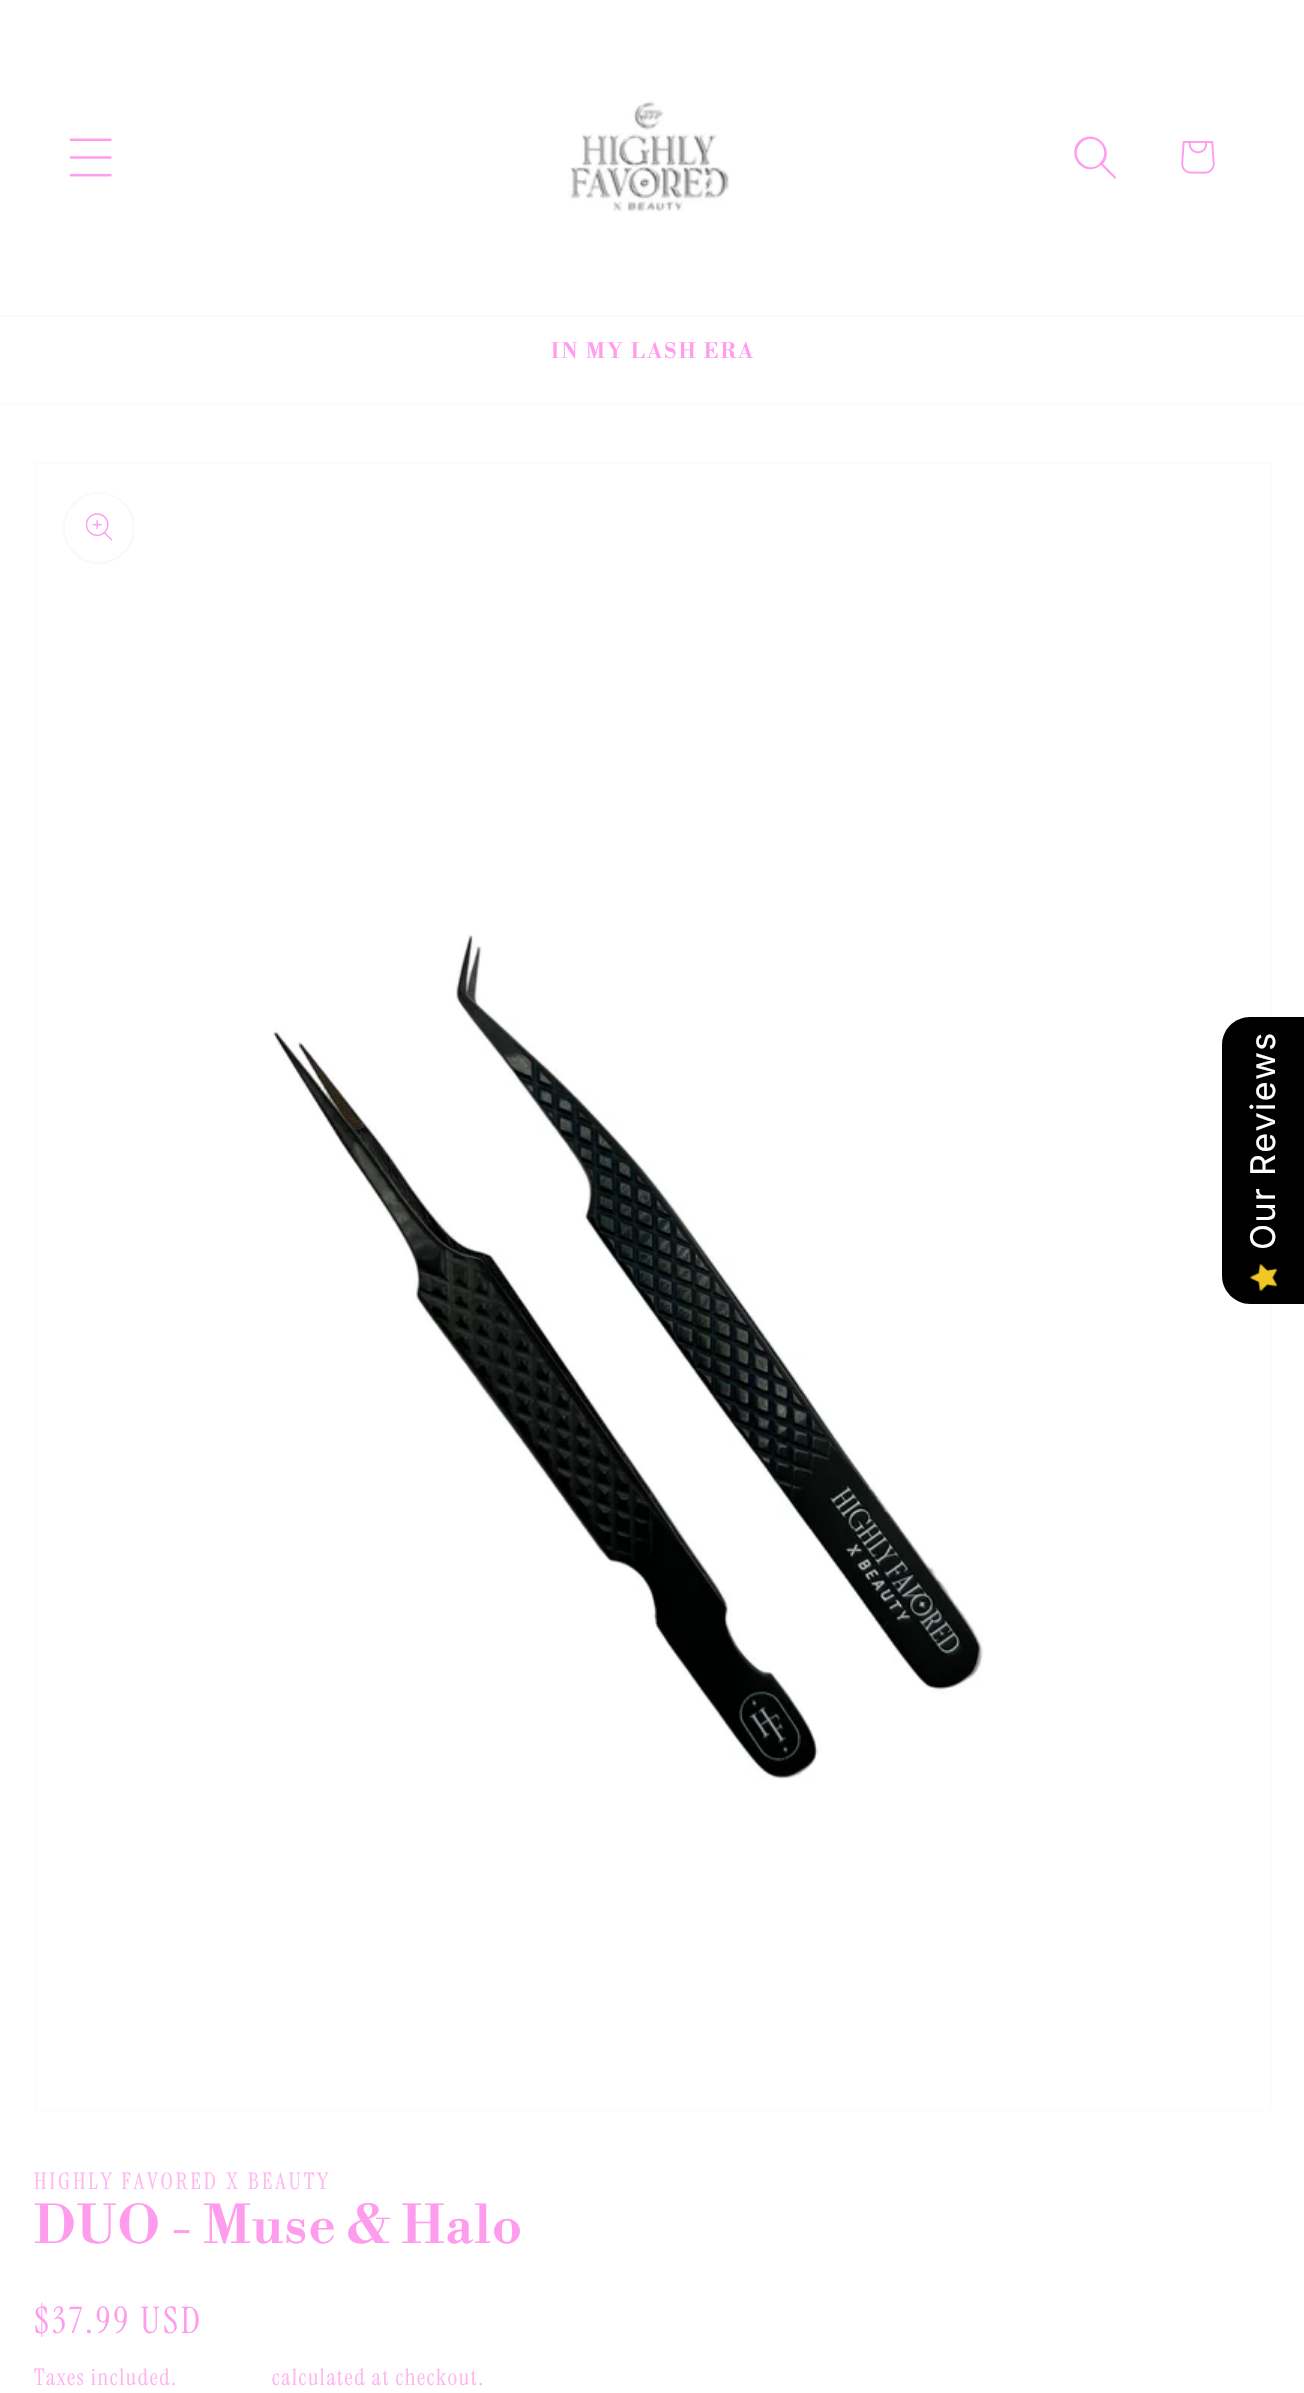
void draw(SkCanvas* canvas) {
	SkPaint fill;
	fill.setAntiAlias(true);
	auto makeFont = [&](const char* family, int weight, float size, bool italic = false) {
		SkFontStyle style(weight, SkFontStyle::kNormal_Width,
			italic ? SkFontStyle::kItalic_Slant : SkFontStyle::kUpright_Slant);
		SkFont result(fontMgr->matchFamilyStyle(family, style), size);
		result.setSubpixel(true);
		return result;
	};
	auto spacedText = [&](const char* s, float x, float y, const SkFont& font, const SkPaint& ink, float letter, float word) {
		std::vector<SkGlyphID> glyphs(font.countText(s, strlen(s), SkTextEncoding::kUTF8));
		std::vector<float> xs(glyphs.size());
		font.textToGlyphs(s, strlen(s), SkTextEncoding::kUTF8, glyphs);
		font.getXPos(glyphs, xs, x);
		float extra = 0;
		for (size_t i = 0; i < glyphs.size(); i++) {
			xs[i] += extra;
			extra += letter + word * (glyphs[i] == font.unicharToGlyph(' '));
		}
		canvas->drawTextBlob(SkTextBlob::MakeFromPosHGlyphs(glyphs, xs, y, font), 0, 0, ink);
	};
	auto box = [&](float l, float t, float r, float b) {
		canvas->drawRect(SkRect::MakeLTRB(l, t, r, b), fill);
	};
	auto picture = [&](const char* path, float l, float t, float r, float b) {
		auto image = SkImages::DeferredFromEncodedData(SkData::MakeFromFileName(path));
		canvas->drawImageRect(image, SkRect::MakeLTRB(l, t, r, b), SkSamplingOptions());
	};
	canvas->clear(0xFFFFFFFF);
	fill.setColor(0xFFFFF7FE);
	box(0, 315, 1304, 317);
	picture("image0.png", 69, 138, 112, 177);
	picture("image1.png", 568, 101, 729, 212);
	fill.setColor(0xFFFF9CEE);
	canvas->drawPath(SkPathBuilder(SkPathFillType::kEvenOdd).moveTo(1100, 163).cubicTo(1088, 176, 1068, 156, 1081, 143).cubicTo(1094, 130, 1113, 150, 1100, 163).moveTo(1101, 165).cubicTo(1085, 179, 1065, 156, 1079, 141).cubicTo(1094, 127, 1116, 148, 1103, 164).lineTo(1116, 177).cubicTo(1116, 179, 1115, 179, 1114, 178).close().detach(), fill);
	picture("image2.png", 1181, 141, 1215, 174);
	fill.setColor(0xFFFFF7FE);
	box(0, 403, 1304, 404);
	fill.setStyle(SkPaint::kStroke_Style);
	fill.setStrokeWidth(2);
	fill.setColor(0xFFFFFAFE);
	canvas->drawRect(SkRect::MakeLTRB(36, 463, 1271, 2110), fill);
	fill.setStyle(SkPaint::kFill_Style);
	fill.setColor(0xFF000000);
	canvas->drawPath(SkPathBuilder().moveTo(1222, 1276).lineTo(1222, 1045).cubicTo(1222, 1029, 1235, 1017, 1250, 1017).lineTo(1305, 1017).lineTo(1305, 1304).lineTo(1250, 1304).cubicTo(1235, 1304, 1222, 1291, 1222, 1276).close().detach(), fill);
	picture("image3.png", 1250, 1264, 1277, 1291);
	fill.setStyle(SkPaint::kStroke_Style);
	fill.setColor(0xFFFFF5FD);
	canvas->drawCircle(99, 528, 35, fill);
	picture("image4.png", 86, 513, 112, 541);
	picture("image5.png", 273, 934, 984, 1780);
	auto font1 = makeFont("Libre Bodoni", 600, 21);
	fill.setStyle(SkPaint::kFill_Style);
	fill.setColor(0xFFFF9CEE);
	spacedText("IN MY LASH ERA", 551, 358, font1, fill, 2.25f, 0);
	auto font2 = makeFont("Inter", 400, 34);
	fill.setColor(0xFFFFFFFF);
	canvas->save();
	canvas->rotate(-90, 1275, 1250);
	spacedText("Our Reviews", 1275, 1250, font2, fill, 1.4f, 0);
	canvas->restore();
	auto font3 = makeFont("Instrument Serif", 400, 22.75f);
	fill.setColor(0xFFFFB5F2);
	spacedText("HIGHLY FAVORED X BEAUTY", 34, 2189, font3, fill, 3, 0);
	auto font4 = makeFont("Libre Bodoni", 600, 52.5f);
	fill.setColor(0xFFFF9CEE);
	spacedText("DUO - Muse & Halo", 34, 2243, font4, fill, 1, 0);
	auto font5 = makeFont("Instrument Serif", 400, 36.5f);
	spacedText("$37.99 USD", 34, 2333, font5, fill, 3, 0);
	fill.setColor(0xFFFFB5F2);
	spacedText("Taxes included.", 34, 2385, font3, fill, 1.6f, 0);
	spacedText("calculated at checkout.", 272, 2385, font3, fill, 1.6f, 0);
}
